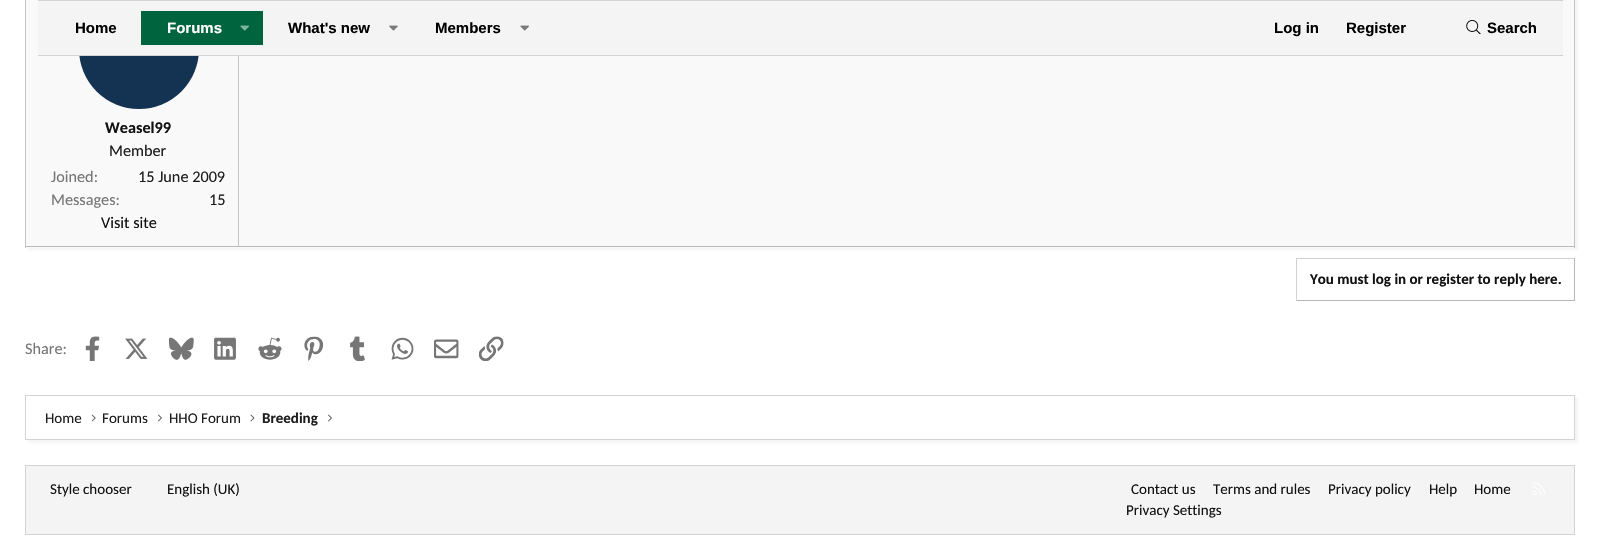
void draw(SkCanvas* canvas) {
	SkPaint fill;
	fill.setAntiAlias(true);
	auto makeFont = [&](const char* family, int weight, float size, bool italic = false) {
		SkFontStyle style(weight, SkFontStyle::kNormal_Width,
			italic ? SkFontStyle::kItalic_Slant : SkFontStyle::kUpright_Slant);
		SkFont result(fontMgr->matchFamilyStyle(family, style), size);
		result.setSubpixel(true);
		return result;
	};
	auto text = [&](const char* s, float x, float y, const SkFont& font) {
		canvas->drawString(s, x, y, font, fill);
	};
	auto box = [&](float l, float t, float r, float b) {
		canvas->drawRect(SkRect::MakeLTRB(l, t, r, b), fill);
	};
	auto picture = [&](const char* path, float l, float t, float r, float b) {
		auto image = SkImages::DeferredFromEncodedData(SkData::MakeFromFileName(path));
		canvas->drawImageRect(image, SkRect::MakeLTRB(l, t, r, b), SkSamplingOptions());
	};
	canvas->clear(0xFFFFFFFF);
	fill.setColor(0x0A000000);
	fill.setMaskFilter(SkMaskFilter::MakeBlur(kNormal_SkBlurStyle, 1));
	canvas->drawRect(SkRect::MakeLTRB(28, -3, 1578, 250), fill);
	fill.setMaskFilter(nullptr);
	fill.setColor(0xFFF9F9F9);
	box(26, 0, 1574, 248);
	fill.setColor(0xFF143352);
	canvas->drawCircle(139, 49, 60, fill);
	fill.setColor(0xFFF4F4F4);
	box(38, 1, 1563, 55);
	fill.setColor(0xFFD2D2D2);
	box(38, 0, 1563, 1);
	box(38, 55, 1563, 56);
	fill.setColor(0xFF00643F);
	box(141, 11, 263, 45);
	picture("image0.png", 240, 25, 249, 31);
	picture("image1.png", 389, 25, 398, 31);
	picture("image2.png", 520, 25, 529, 31);
	picture("image3.png", 1466, 20, 1481, 34);
	fill.setColor(0xFFC4C4C4);
	box(1574, 0, 1575, 248);
	fill.setColor(0xFFBABABA);
	box(25, 246, 1575, 247);
	fill.setColor(0xFFC4C4C4);
	box(25, 0, 26, 248);
	box(238, 56, 239, 246);
	fill.setColor(0xFFD1D1D1);
	box(1296, 258, 1575, 259);
	fill.setColor(0xFFB7B7B7);
	box(1574, 258, 1575, 301);
	box(1296, 300, 1575, 301);
	fill.setColor(0xFFD1D1D1);
	box(1296, 258, 1297, 301);
	picture("image4.png", 85, 336, 100, 361);
	picture("image5.png", 125, 338, 148, 359);
	picture("image6.png", 169, 337, 194, 360);
	picture("image7.png", 214, 337, 236, 360);
	picture("image8.png", 258, 337, 282, 360);
	picture("image9.png", 304, 336, 324, 361);
	picture("image10.png", 350, 336, 365, 361);
	picture("image11.png", 391, 337, 414, 360);
	picture("image12.png", 434, 339, 459, 359);
	picture("image13.png", 479, 336, 504, 361);
	canvas->save();
	canvas->clipPath(SkPathBuilder(SkPathFillType::kEvenOdd).moveTo(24, 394).lineTo(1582, 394).lineTo(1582, 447).lineTo(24, 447).close().moveTo(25, 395).lineTo(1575, 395).lineTo(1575, 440).lineTo(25, 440).close().detach(), true);
	fill.setColor(0x0A000000);
	fill.setMaskFilter(SkMaskFilter::MakeBlur(kNormal_SkBlurStyle, 1));
	canvas->drawRect(SkRect::MakeLTRB(28, 398, 1578, 443), fill);
	fill.setMaskFilter(nullptr);
	canvas->restore();
	fill.setStyle(SkPaint::kStroke_Style);
	fill.setStrokeWidth(1);
	fill.setColor(0xFFD3D3D3);
	canvas->drawRect(SkRect::MakeLTRB(25.5f, 395.5f, 1574.5f, 439.5f), fill);
	picture("image14.png", 91, 414, 96, 422);
	picture("image15.png", 158, 414, 162, 422);
	picture("image16.png", 250, 414, 255, 422);
	picture("image15.png", 328, 414, 332, 422);
	fill.setStyle(SkPaint::kFill_Style);
	fill.setColor(0xFFF4F4F4);
	canvas->drawRect(SkRect::MakeLTRB(25.5f, 465.5f, 1574.5f, 534.5f), fill);
	fill.setStyle(SkPaint::kStroke_Style);
	fill.setColor(0xFFD2D2D2);
	canvas->drawRect(SkRect::MakeLTRB(25.5f, 465.5f, 1574.5f, 534.5f), fill);
	picture("image17.png", 1532, 482, 1545, 495);
	auto font1 = makeFont("Liberation Sans", 700, 15);
	fill.setStyle(SkPaint::kFill_Style);
	fill.setColor(0xFF000000);
	text("Home", 75, 33, font1);
	fill.setColor(0xFFFFFFFF);
	text("Forums", 167, 33, font1);
	fill.setColor(0xFF000000);
	text("What's new", 288, 33, font1);
	text("Members", 435, 33, font1);
	text("Log in", 1274, 33, font1);
	text("Register", 1346, 33, font1);
	text("Search", 1487, 33, font1);
	auto font2 = makeFont("Carlito", 700, 16.25f);
	fill.setColor(0xFF121212);
	text("Weasel99", 105, 133, font2);
	auto font3 = makeFont("Carlito", 400, 16.25f);
	fill.setColor(0xFF1D1D1D);
	text("Member", 109, 156, font3);
	fill.setColor(0xFF767676);
	text("Joined:", 51, 182, font3);
	fill.setColor(0xFF1D1D1D);
	text("15 June 2009", 138, 182, font3);
	fill.setColor(0xFF767676);
	text("Messages:", 51, 205, font3);
	fill.setColor(0xFF1D1D1D);
	text("15", 209, 205, font3);
	fill.setColor(0xFF121212);
	text("Visit site", 101, 228, font3);
	auto font4 = makeFont("Carlito", 700, 15);
	text("You must log in or register to reply here.", 1310, 284, font4);
	fill.setColor(0xFF767676);
	text("Share:", 25, 354, font3);
	auto font5 = makeFont("Carlito", 400, 15);
	fill.setColor(0xFF1D1D1D);
	text("Home", 45, 423, font5);
	text("Forums", 102, 423, font5);
	text("HHO Forum", 169, 423, font5);
	text("Breeding", 262, 423, font4);
	fill.setColor(0xFF121212);
	text("Style chooser", 50, 494, font5);
	text("English (UK)", 167, 494, font5);
	text("Contact us", 1131, 494, font5);
	text("Terms and rules", 1213, 494, font5);
	text("Privacy policy", 1328, 494, font5);
	text("Help", 1429, 494, font5);
	text("Home", 1474, 494, font5);
	text("Privacy Settings", 1126, 515, font5);
}
